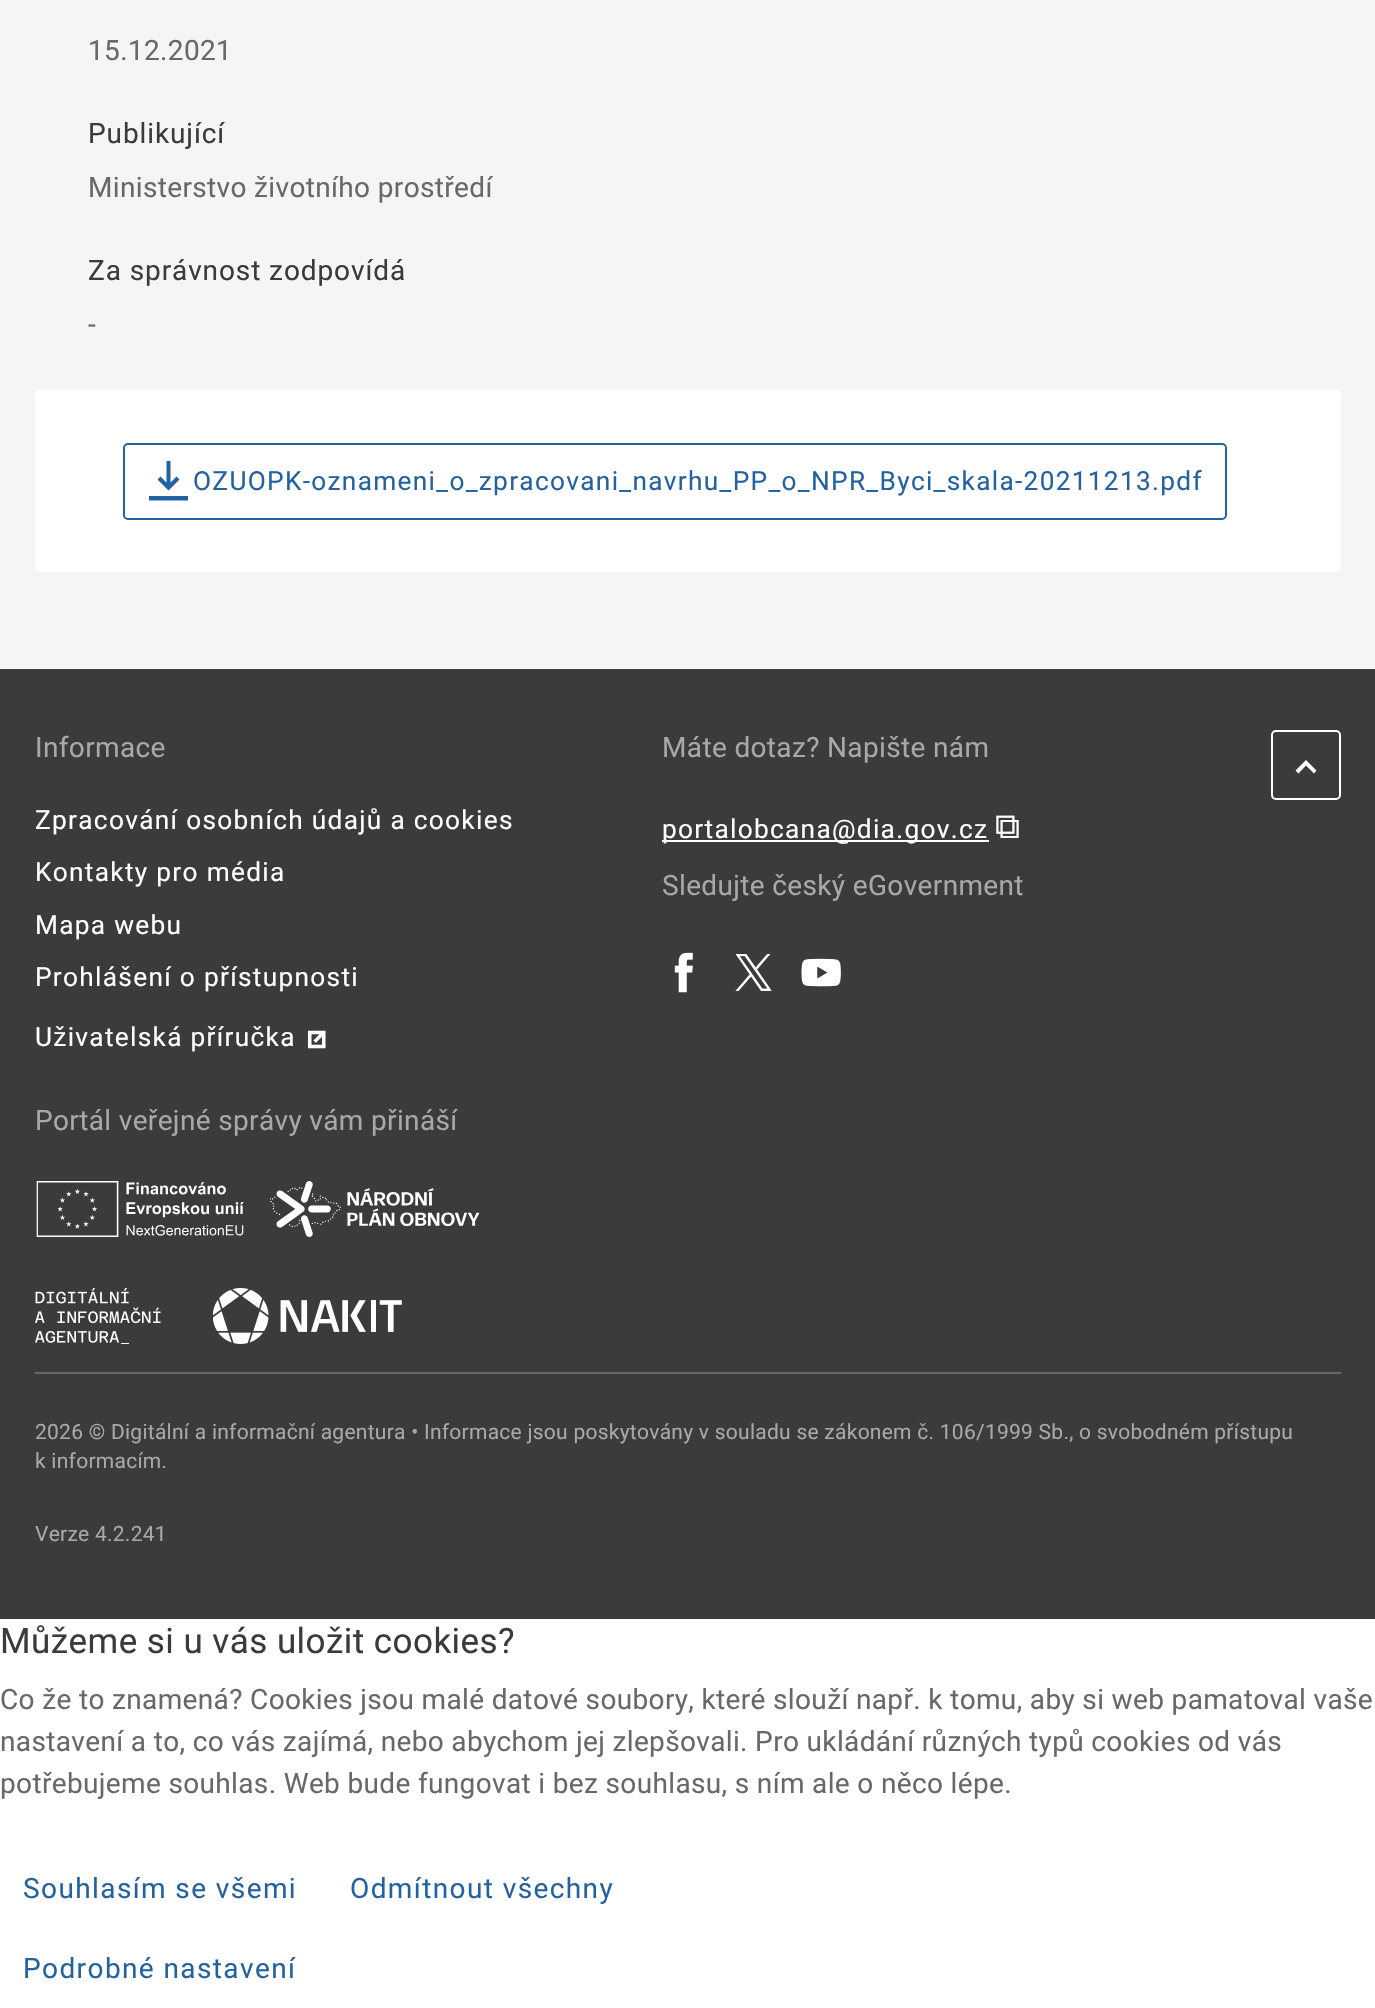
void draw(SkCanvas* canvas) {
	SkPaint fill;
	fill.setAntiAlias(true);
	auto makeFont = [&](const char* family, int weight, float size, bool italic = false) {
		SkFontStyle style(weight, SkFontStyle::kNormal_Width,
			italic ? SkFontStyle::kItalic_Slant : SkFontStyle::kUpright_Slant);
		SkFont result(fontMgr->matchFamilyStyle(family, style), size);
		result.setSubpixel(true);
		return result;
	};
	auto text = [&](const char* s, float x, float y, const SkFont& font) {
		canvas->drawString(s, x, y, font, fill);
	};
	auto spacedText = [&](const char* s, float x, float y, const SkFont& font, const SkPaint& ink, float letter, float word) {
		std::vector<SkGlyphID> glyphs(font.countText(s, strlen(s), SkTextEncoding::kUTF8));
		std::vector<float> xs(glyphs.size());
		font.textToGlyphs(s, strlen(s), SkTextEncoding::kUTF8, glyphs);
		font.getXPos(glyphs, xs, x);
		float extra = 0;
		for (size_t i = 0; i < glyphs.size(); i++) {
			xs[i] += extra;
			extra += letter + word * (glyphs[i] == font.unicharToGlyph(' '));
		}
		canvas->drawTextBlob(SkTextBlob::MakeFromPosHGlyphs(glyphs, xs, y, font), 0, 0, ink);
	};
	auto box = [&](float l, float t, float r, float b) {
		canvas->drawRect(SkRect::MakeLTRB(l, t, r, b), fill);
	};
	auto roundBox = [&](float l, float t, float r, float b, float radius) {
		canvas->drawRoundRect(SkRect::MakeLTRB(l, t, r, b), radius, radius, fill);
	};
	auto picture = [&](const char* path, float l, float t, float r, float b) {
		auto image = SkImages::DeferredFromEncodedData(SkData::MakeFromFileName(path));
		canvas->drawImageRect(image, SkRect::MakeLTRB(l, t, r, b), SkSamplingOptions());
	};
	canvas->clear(0xFFFFFFFF);
	fill.setColor(0xFFF5F5F5);
	box(0, 0, 1375, 669);
	fill.setColor(0xFFFFFFFF);
	roundBox(35, 390, 1341, 572, 5);
	fill.setStyle(SkPaint::kStroke_Style);
	fill.setStrokeWidth(2);
	fill.setColor(0xFF2362A2);
	canvas->drawRoundRect(SkRect::MakeLTRB(124, 444, 1226, 519), 4, 4, fill);
	fill.setStyle(SkPaint::kFill_Style);
	canvas->drawPath(SkPathBuilder().moveTo(188, 500.5f).lineTo(149, 500.5f).lineTo(149, 496).lineTo(188, 496).close().moveTo(179.5f, 479.5f).lineTo(168.5f, 490.5f).lineTo(157.5f, 479.5f).lineTo(160.5f, 476.5f).lineTo(166.5f, 482.5f).lineTo(166.5f, 461).lineTo(170.5f, 461).lineTo(170.5f, 482.5f).lineTo(176.5f, 476.5f).close().detach(), fill);
	fill.setColor(0xFF3B3B3B);
	box(0, 669, 1375, 1619);
	picture("image0.png", 307, 1030, 326, 1049);
	fill.setColor(0xFFFFFFFF);
	box(662, 840, 989, 842);
	picture("image1.png", 674, 952, 693, 993);
	picture("image2.png", 735, 954, 772, 991);
	picture("image3.png", 801, 958, 841, 987);
	picture("image4.png", 36, 1181, 244, 1237);
	picture("image5.png", 270, 1181, 480, 1237);
	picture("image6.png", 35, 1288, 161, 1344);
	picture("image7.png", 213, 1288, 402, 1344);
	fill.setStyle(SkPaint::kStroke_Style);
	canvas->drawRoundRect(SkRect::MakeLTRB(1272, 731, 1340, 799), 4, 4, fill);
	fill.setStyle(SkPaint::kFill_Style);
	canvas->drawPath(SkPathBuilder().moveTo(1298.5f, 773.5f).lineTo(1295.5f, 770.5f).lineTo(1306, 760).lineTo(1316.5f, 770.5f).lineTo(1314, 773.5f).lineTo(1306, 765.5f).close().detach(), fill);
	fill.setColor(0xFF686868);
	box(35, 1372, 1341, 1374);
	auto font1 = makeFont("Roboto", 400, 28);
	spacedText("15.12.2021", 88, 60, font1, fill, 0.35f, 0);
	fill.setColor(0xFF3B3B3B);
	spacedText("Publikující", 88, 143, font1, fill, 0.9f, 0);
	fill.setColor(0xFF686868);
	spacedText("Ministerstvo životního prostředí", 88, 197, font1, fill, 0.35f, 0);
	fill.setColor(0xFF3B3B3B);
	spacedText("Za správnost zodpovídá", 88, 280, font1, fill, 0.9f, 0);
	fill.setColor(0xFF686868);
	spacedText("-", 88, 334, font1, fill, 0.35f, 0);
	auto font2 = makeFont("Roboto", 400, 26.25f);
	fill.setColor(0xFF2362A2);
	spacedText("OZUOPK-oznameni_o_zpracovani_navrhu_PP_o_NPR_Byci_skala-20211213.pdf", 193, 490, font2, fill, 1.3f, 0);
	fill.setColor(0xFFA8A8A8);
	spacedText("Informace", 35, 757, font1, fill, 0.35f, 0);
	fill.setColor(0xFFFFFFFF);
	spacedText("Zpracování osobních údajů a cookies", 35, 829, font2, fill, 1.3f, 0);
	spacedText("Kontakty pro média", 35, 881, font2, fill, 1.3f, 0);
	spacedText("Mapa webu", 35, 934, font2, fill, 1.3f, 0);
	spacedText("Prohlášení o přístupnosti", 35, 986, font2, fill, 1.3f, 0);
	spacedText("Uživatelská příručka", 35, 1046, font2, fill, 1.3f, 0);
	fill.setColor(0xFFA8A8A8);
	spacedText("Máte dotaz? Napište nám", 662, 757, font1, fill, 0.35f, 0);
	fill.setColor(0xFFFFFFFF);
	spacedText("portalobcana@dia.gov.cz", 662, 838, font2, fill, 1.3f, 0);
	auto font3 = makeFont("FreeSerif", 400, 35);
	text("⧉", 995, 838, font3);
	fill.setColor(0xFFA8A8A8);
	spacedText("Sledujte český eGovernment", 662, 895, font1, fill, 0.35f, 0);
	spacedText("Portál veřejné správy vám přináší", 35, 1130, font1, fill, 0.35f, 0);
	auto font4 = makeFont("Roboto", 400, 21);
	spacedText("2026 © Digitální a informační agentura • Informace jsou poskytovány v souladu se zákonem č. 106/1999 Sb., o svobodném přístupu", 35, 1439, font4, fill, 0.26f, 0);
	spacedText("k informacím.", 35, 1468, font4, fill, 0.26f, 0);
	spacedText("Verze 4.2.241", 35, 1541, font4, fill, 0.26f, 0);
	auto font5 = makeFont("Roboto", 400, 35);
	fill.setColor(0xFF3B3B3B);
	spacedText("Můžeme si u vás uložit cookies?", 0, 1653, font5, fill, 0.45f, 0);
	fill.setColor(0xFF686868);
	spacedText("Co že to znamená? Cookies jsou malé datové soubory, které slouží např. k tomu, aby si web pamatoval vaše", 0, 1709, font1, fill, 0.35f, 0);
	spacedText("nastavení a to, co vás zajímá, nebo abychom jej zlepšovali. Pro ukládání různých typů cookies od vás", 0, 1751, font1, fill, 0.35f, 0);
	spacedText("potřebujeme souhlas. Web bude fungovat i bez souhlasu, s ním ale o něco lépe.", 0, 1793, font1, fill, 0.35f, 0);
	fill.setColor(0xFF2362A2);
	spacedText("Souhlasím se všemi", 23, 1898, font1, fill, 1.4f, 0);
	spacedText("Odmítnout všechny", 350, 1898, font1, fill, 1.4f, 0);
	spacedText("Podrobné nastavení", 23, 1978, font1, fill, 1.4f, 0);
}
